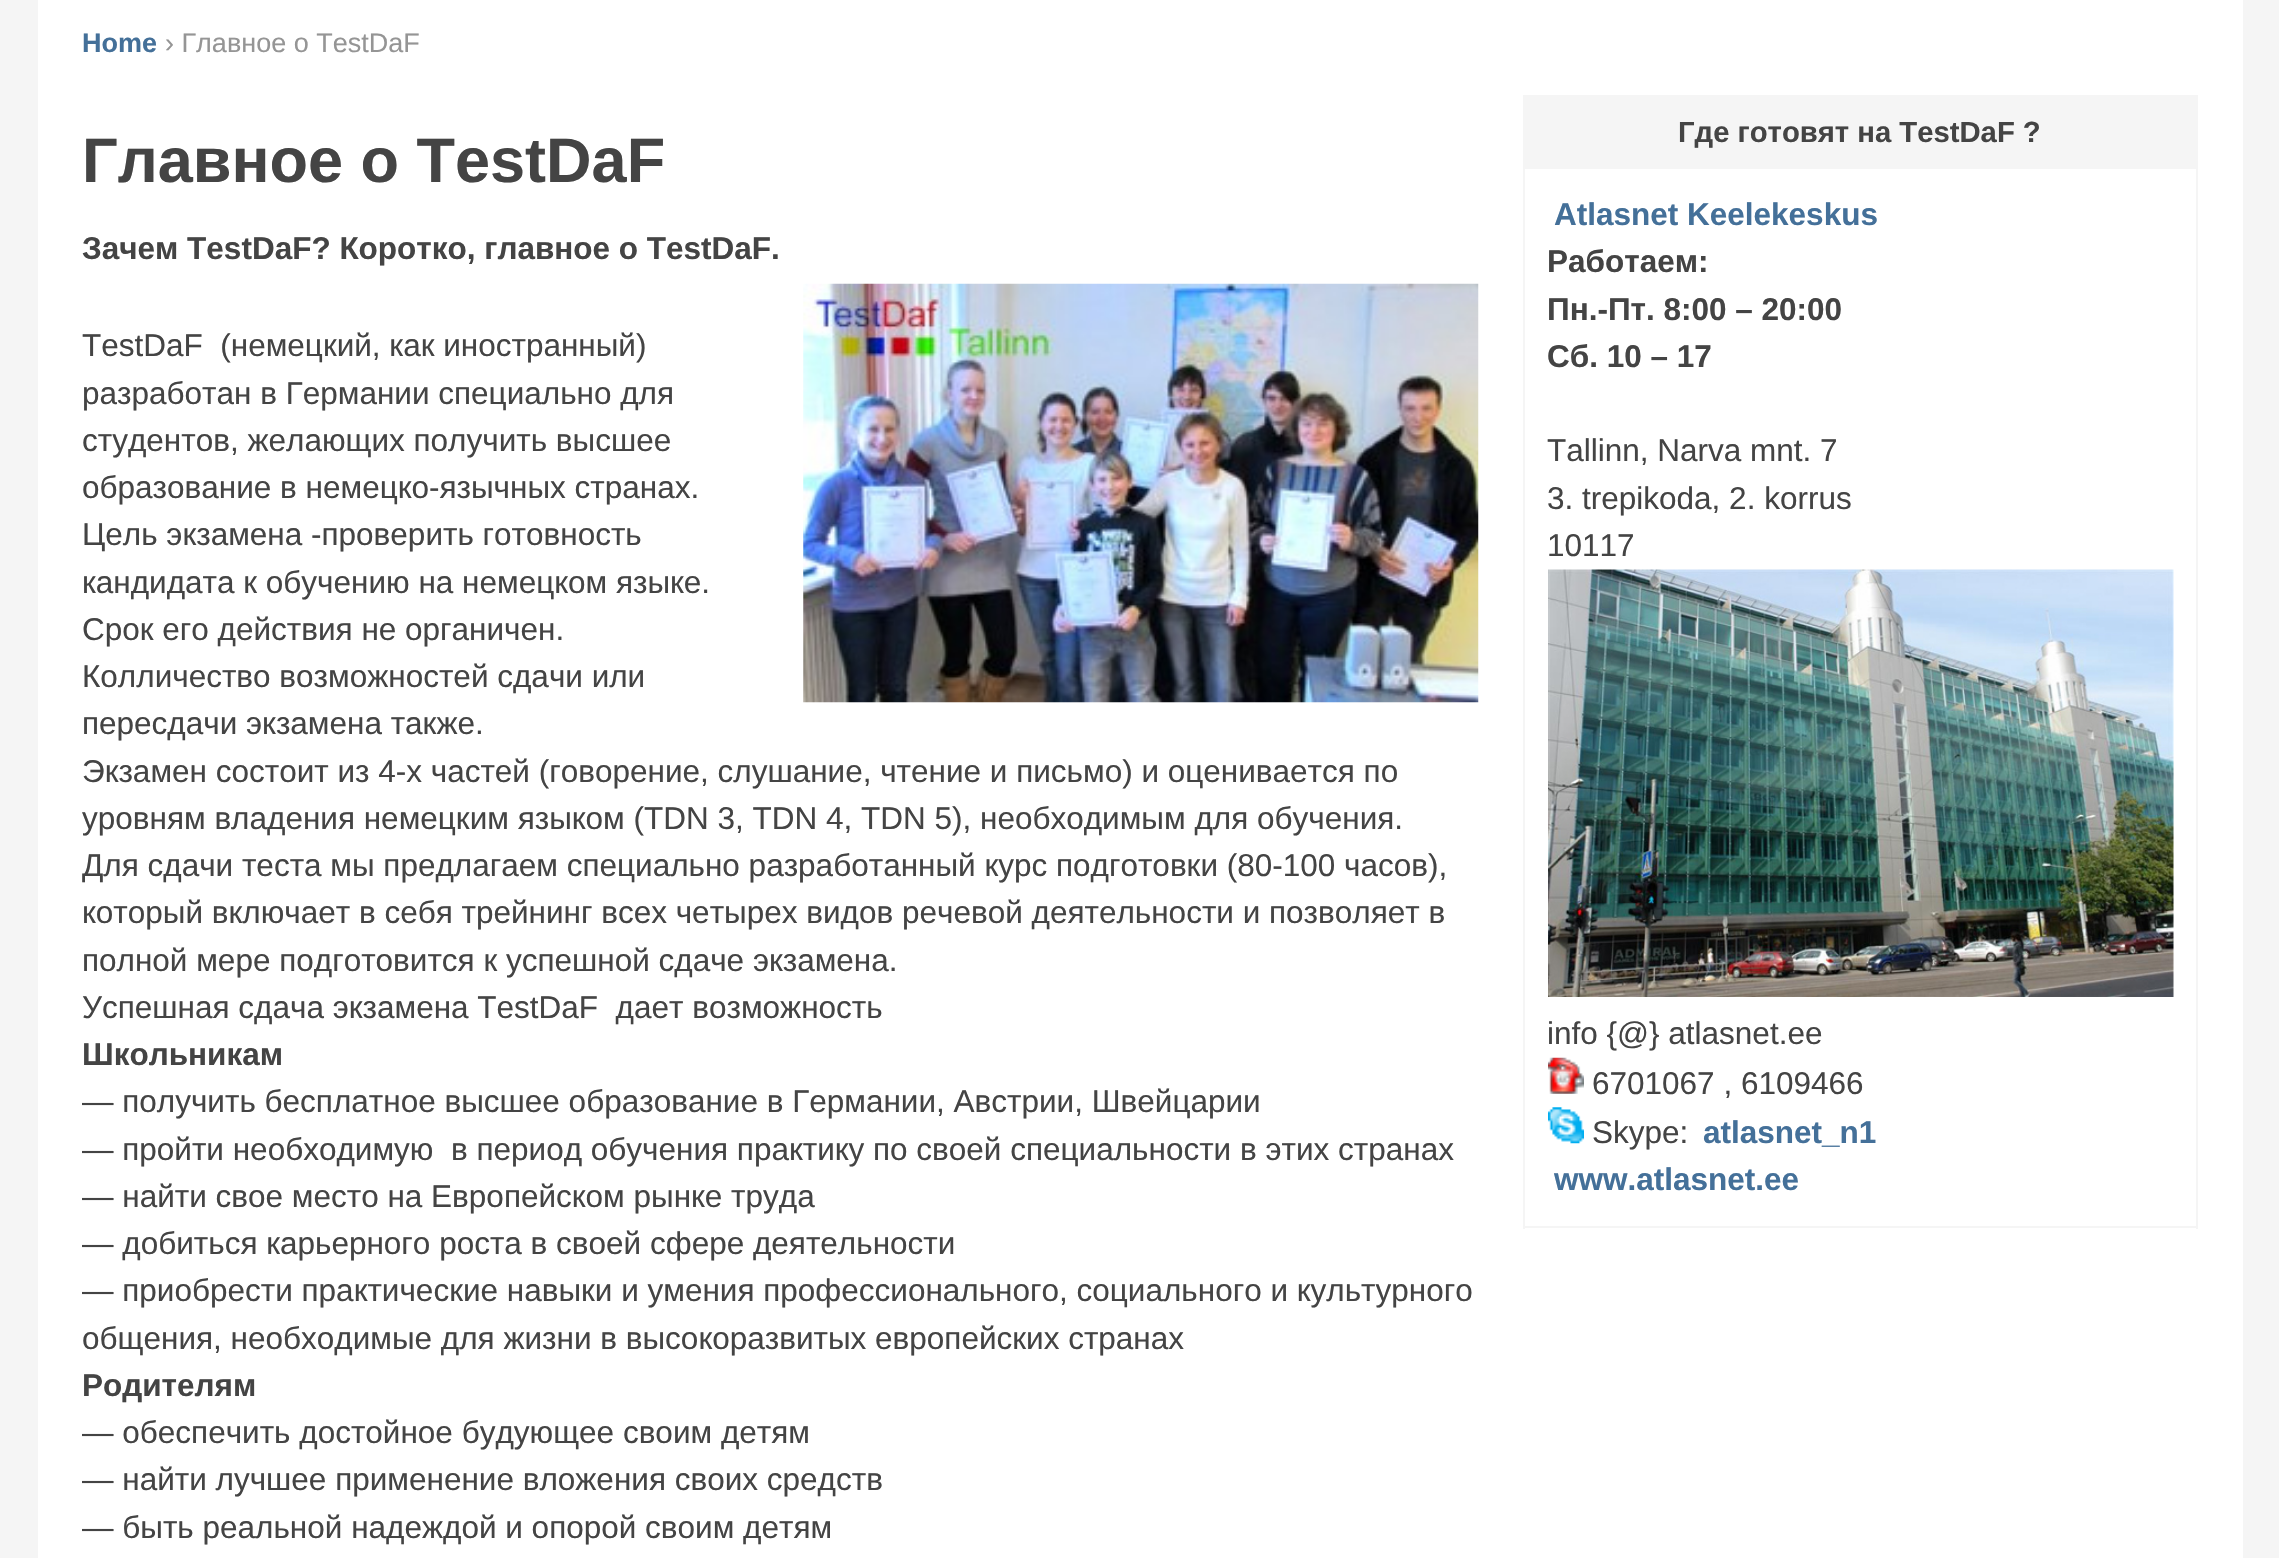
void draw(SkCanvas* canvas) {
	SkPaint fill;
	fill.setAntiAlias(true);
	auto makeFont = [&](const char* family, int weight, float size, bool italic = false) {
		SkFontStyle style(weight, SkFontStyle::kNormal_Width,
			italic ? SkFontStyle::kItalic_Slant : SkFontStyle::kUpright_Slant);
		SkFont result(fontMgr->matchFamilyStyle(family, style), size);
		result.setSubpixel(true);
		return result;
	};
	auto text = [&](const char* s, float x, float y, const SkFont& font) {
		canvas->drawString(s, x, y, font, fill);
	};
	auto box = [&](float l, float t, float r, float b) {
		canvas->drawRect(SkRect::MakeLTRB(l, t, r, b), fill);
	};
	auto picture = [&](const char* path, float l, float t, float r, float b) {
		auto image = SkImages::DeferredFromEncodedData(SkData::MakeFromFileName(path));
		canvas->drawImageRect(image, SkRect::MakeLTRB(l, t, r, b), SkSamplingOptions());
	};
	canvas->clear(0xFFF5F5F5);
	fill.setColor(0xFFFFFFFF);
	box(38, 0, 2243, 1558);
	picture("image0.png", 803, 283, 1479, 703);
	fill.setColor(0xFFF5F5F5);
	box(1523, 95, 2198, 169);
	box(2196, 169, 2198, 1229);
	box(1523, 1226, 2198, 1228);
	box(1523, 169, 1525, 1229);
	picture("image1.png", 1548, 569, 2174, 997);
	picture("image2.png", 1548, 1057, 1584, 1094);
	picture("image3.png", 1548, 1107, 1584, 1144);
	auto font1 = makeFont("Liberation Sans", 700, 27);
	fill.setColor(0xFF447099);
	text("Home", 82, 52, font1);
	auto font2 = makeFont("Liberation Sans", 400, 27);
	fill.setColor(0xFF959595);
	text("› Главное о TestDaF", 165, 52, font2);
	auto font3 = makeFont("Liberation Sans", 700, 63);
	fill.setColor(0xFF444444);
	text("Главное о TestDaF", 82, 182, font3);
	auto font4 = makeFont("Liberation Sans", 700, 31.5f);
	text("Зачем TestDaF? Коротко, главное о TestDaF.", 82, 259, font4);
	auto font5 = makeFont("Liberation Sans", 400, 31.5f);
	text("TestDaF  (немецкий, как иностранный)", 82, 356, font5);
	text("разработан в Германии специально для", 82, 404, font5);
	text("студентов, желающих получить высшее", 82, 451, font5);
	text("образование в немецко-язычных странах.", 82, 498, font5);
	text("Цель экзамена -проверить готовность", 82, 545, font5);
	text("кандидата к обучению на немецком языке.", 82, 593, font5);
	text("Срок его действия не органичен.", 82, 640, font5);
	text("Колличество возможностей сдачи или", 82, 687, font5);
	text("пересдачи экзамена также.", 82, 734, font5);
	text("Экзамен состоит из 4-х частей (говорение, слушание, чтение и письмо) и оценивается по", 82, 782, font5);
	text("уровням владения немецким языком (TDN 3, TDN 4, TDN 5), необходимым для обучения.", 82, 829, font5);
	text("Для сдачи теста мы предлагаем специально разработанный курс подготовки (80-100 часов),", 82, 876, font5);
	text("который включает в себя трейнинг всех четырех видов речевой деятельности и позволяет в", 82, 923, font5);
	text("полной мере подготовится к успешной сдаче экзамена.", 82, 971, font5);
	text("Успешная сдача экзамена TestDaF  дает возможность", 82, 1018, font5);
	text("Школьникам", 82, 1065, font4);
	text("— получить бесплатное высшее образование в Германии, Австрии, Швейцарии", 82, 1112, font5);
	text("— пройти необходимую  в период обучения практику по своей специальности в этих странах", 82, 1160, font5);
	text("— найти свое место на Европейском рынке труда", 82, 1207, font5);
	text("— добиться карьерного роста в своей сфере деятельности", 82, 1254, font5);
	text("— приобрести практические навыки и умения профессионального, социального и культурного", 82, 1301, font5);
	text("общения, необходимые для жизни в высокоразвитых европейских странах", 82, 1349, font5);
	text("Родителям", 82, 1396, font4);
	text("— обеспечить достойное будующее своим детям", 82, 1443, font5);
	text("— найти лучшее применение вложения своих средств", 82, 1490, font5);
	text("— быть реальной надеждой и опорой своим детям", 82, 1538, font5);
	auto font6 = makeFont("Liberation Sans", 700, 29.25f);
	text("Где готовят на TestDaF ?", 1678, 142, font6);
	fill.setColor(0xFF447099);
	text("Atlasnet Keelekeskus", 1554, 225, font4);
	fill.setColor(0xFF444444);
	text("Работаем:", 1547, 272, font4);
	text("Пн.-Пт. 8:00 – 20:00", 1547, 320, font4);
	text("Сб. 10 – 17", 1547, 367, font4);
	text("Tallinn, Narva mnt. 7", 1547, 461, font5);
	text("3. trepikoda, 2. korrus", 1547, 509, font5);
	text("10117", 1547, 556, font5);
	text("info {@} atlasnet.ee", 1547, 1044, font5);
	text("6701067 , 6109466", 1592, 1094, font5);
	text("Skype:", 1592, 1143, font5);
	fill.setColor(0xFF447099);
	text("atlasnet_n1", 1703, 1143, font4);
	text("www.atlasnet.ee", 1554, 1190, font4);
}
